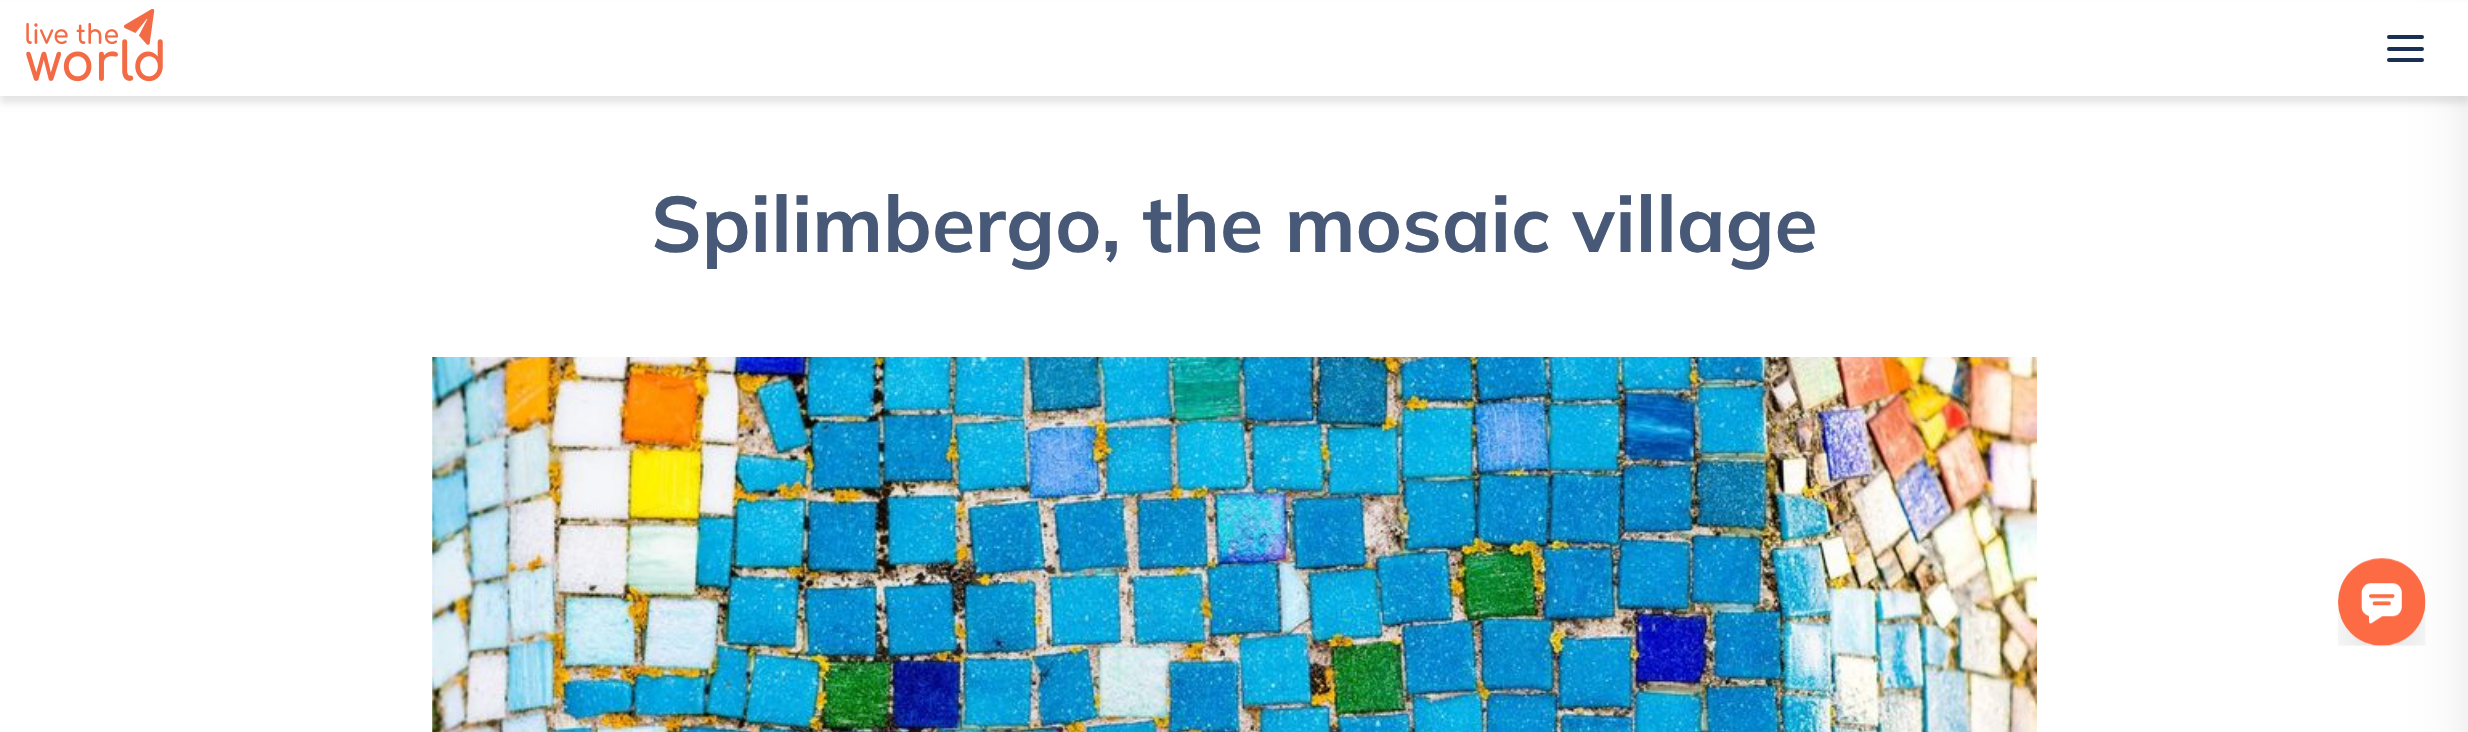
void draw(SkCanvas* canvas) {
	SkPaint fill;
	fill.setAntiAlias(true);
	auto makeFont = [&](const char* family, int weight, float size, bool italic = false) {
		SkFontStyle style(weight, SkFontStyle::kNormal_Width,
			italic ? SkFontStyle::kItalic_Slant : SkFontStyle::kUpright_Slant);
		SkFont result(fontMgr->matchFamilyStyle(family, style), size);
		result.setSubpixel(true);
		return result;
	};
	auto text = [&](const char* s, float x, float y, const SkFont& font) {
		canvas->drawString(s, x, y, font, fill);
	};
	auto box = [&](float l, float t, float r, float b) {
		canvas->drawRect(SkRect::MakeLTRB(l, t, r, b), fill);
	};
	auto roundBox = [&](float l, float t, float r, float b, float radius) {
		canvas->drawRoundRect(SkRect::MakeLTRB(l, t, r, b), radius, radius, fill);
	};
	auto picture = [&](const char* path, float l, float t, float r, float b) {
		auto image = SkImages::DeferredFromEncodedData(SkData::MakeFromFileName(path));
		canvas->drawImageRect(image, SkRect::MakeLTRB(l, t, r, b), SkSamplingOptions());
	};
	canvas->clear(0xFFFFFFFF);
	fill.setColor(0x1A000000);
	fill.setMaskFilter(SkMaskFilter::MakeBlur(kNormal_SkBlurStyle, 3.5f));
	canvas->drawRect(SkRect::MakeLTRB(0, 7, 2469, 103), fill);
	fill.setMaskFilter(nullptr);
	fill.setMaskFilter(SkMaskFilter::MakeBlur(kNormal_SkBlurStyle, 26));
	canvas->drawRect(SkRect::MakeLTRB(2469, 35, 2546, 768), fill);
	fill.setMaskFilter(nullptr);
	fill.setColor(0xFFFFFFFF);
	box(0, 2, 2468, 96);
	picture("image0.png", 26, 9, 163, 82);
	fill.setColor(0xFF192F54);
	roundBox(2387, 35, 2424, 39, 2);
	roundBox(2387, 47, 2424, 51, 2);
	roundBox(2387, 58, 2424, 62, 2);
	picture("image1.png", 432, 357, 2037, 732);
	picture("image2.png", 2338, 558, 2426, 647);
	auto font1 = makeFont("Mulish", 700, 78.75f);
	fill.setColor(0xFF475976);
	text("Spilimbergo, the mosaic village", 651, 252, font1);
}
